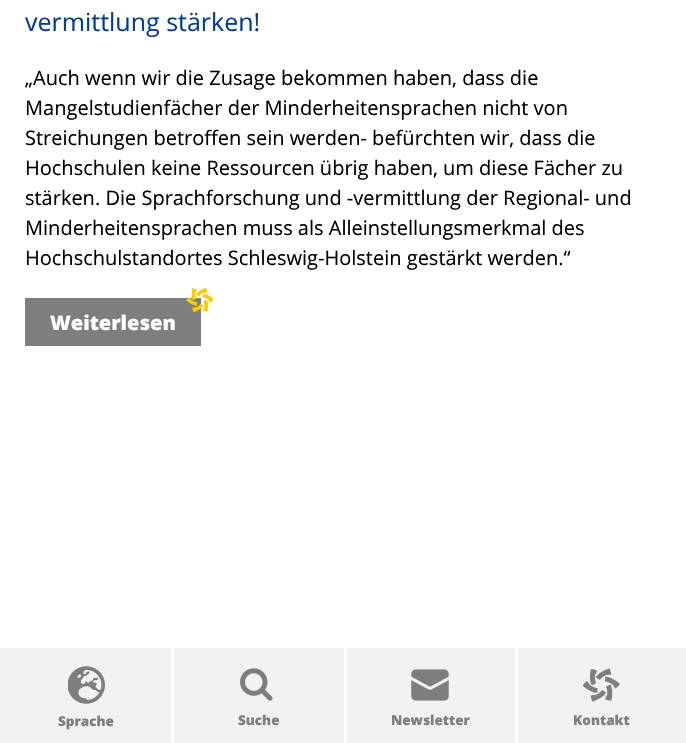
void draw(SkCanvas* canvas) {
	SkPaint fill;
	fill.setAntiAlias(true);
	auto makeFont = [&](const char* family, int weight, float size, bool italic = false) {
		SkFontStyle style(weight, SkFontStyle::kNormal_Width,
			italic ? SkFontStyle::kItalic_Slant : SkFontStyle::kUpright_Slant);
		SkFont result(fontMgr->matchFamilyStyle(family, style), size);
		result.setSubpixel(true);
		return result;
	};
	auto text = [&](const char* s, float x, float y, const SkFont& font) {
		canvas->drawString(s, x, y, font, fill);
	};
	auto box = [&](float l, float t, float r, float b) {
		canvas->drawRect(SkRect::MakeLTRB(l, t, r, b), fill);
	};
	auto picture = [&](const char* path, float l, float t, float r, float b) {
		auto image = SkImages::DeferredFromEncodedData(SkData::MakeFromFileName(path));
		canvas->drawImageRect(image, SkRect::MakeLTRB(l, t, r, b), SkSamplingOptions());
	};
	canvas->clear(0xFFFFFFFF);
	fill.setColor(0xFF7E7E7E);
	box(25, 298, 201, 346);
	picture("image0.png", 186, 287, 214, 313);
	fill.setColor(0xFFF2F2F2);
	box(0, 648, 686, 743);
	picture("image1.png", 68, 666, 105, 704);
	fill.setColor(0xFFFFFFFF);
	box(171, 648, 174, 743);
	picture("image2.png", 240, 668, 273, 701);
	box(344, 648, 347, 743);
	picture("image3.png", 411, 669, 449, 701);
	box(515, 648, 518, 743);
	picture("image4.png", 583, 668, 620, 702);
	auto font1 = makeFont("Open Sans", 400, 25);
	fill.setColor(0xFF003C91);
	text("vermittlung stärken!", 25, 31, font1);
	auto font2 = makeFont("Open Sans", 400, 20);
	fill.setColor(0xFF000000);
	text("„Auch wenn wir die Zusage bekommen haben, dass die", 25, 85, font2);
	text("Mangelstudienfächer der Minderheitensprachen nicht von", 25, 115, font2);
	text("Streichungen betroffen sein werden- befürchten wir, dass die", 25, 145, font2);
	text("Hochschulen keine Ressourcen übrig haben, um diese Fächer zu", 25, 175, font2);
	text("stärken. Die Sprachforschung und -vermittlung der Regional- und", 25, 205, font2);
	text("Minderheitensprachen muss als Alleinstellungsmerkmal des", 25, 235, font2);
	text("Hochschulstandortes Schleswig-Holstein gestärkt werden.“", 25, 265, font2);
	auto font3 = makeFont("Open Sans", 800, 20);
	fill.setColor(0xFFFFFFFF);
	text("Weiterlesen", 50, 330, font3);
	auto font4 = makeFont("Open Sans", 800, 13.5f);
	fill.setColor(0xFF7E7E7E);
	text("Sprache", 58, 726, font4);
	text("Suche", 238, 725, font4);
	text("Newsletter", 391, 725, font4);
	text("Kontakt", 573, 725, font4);
}
